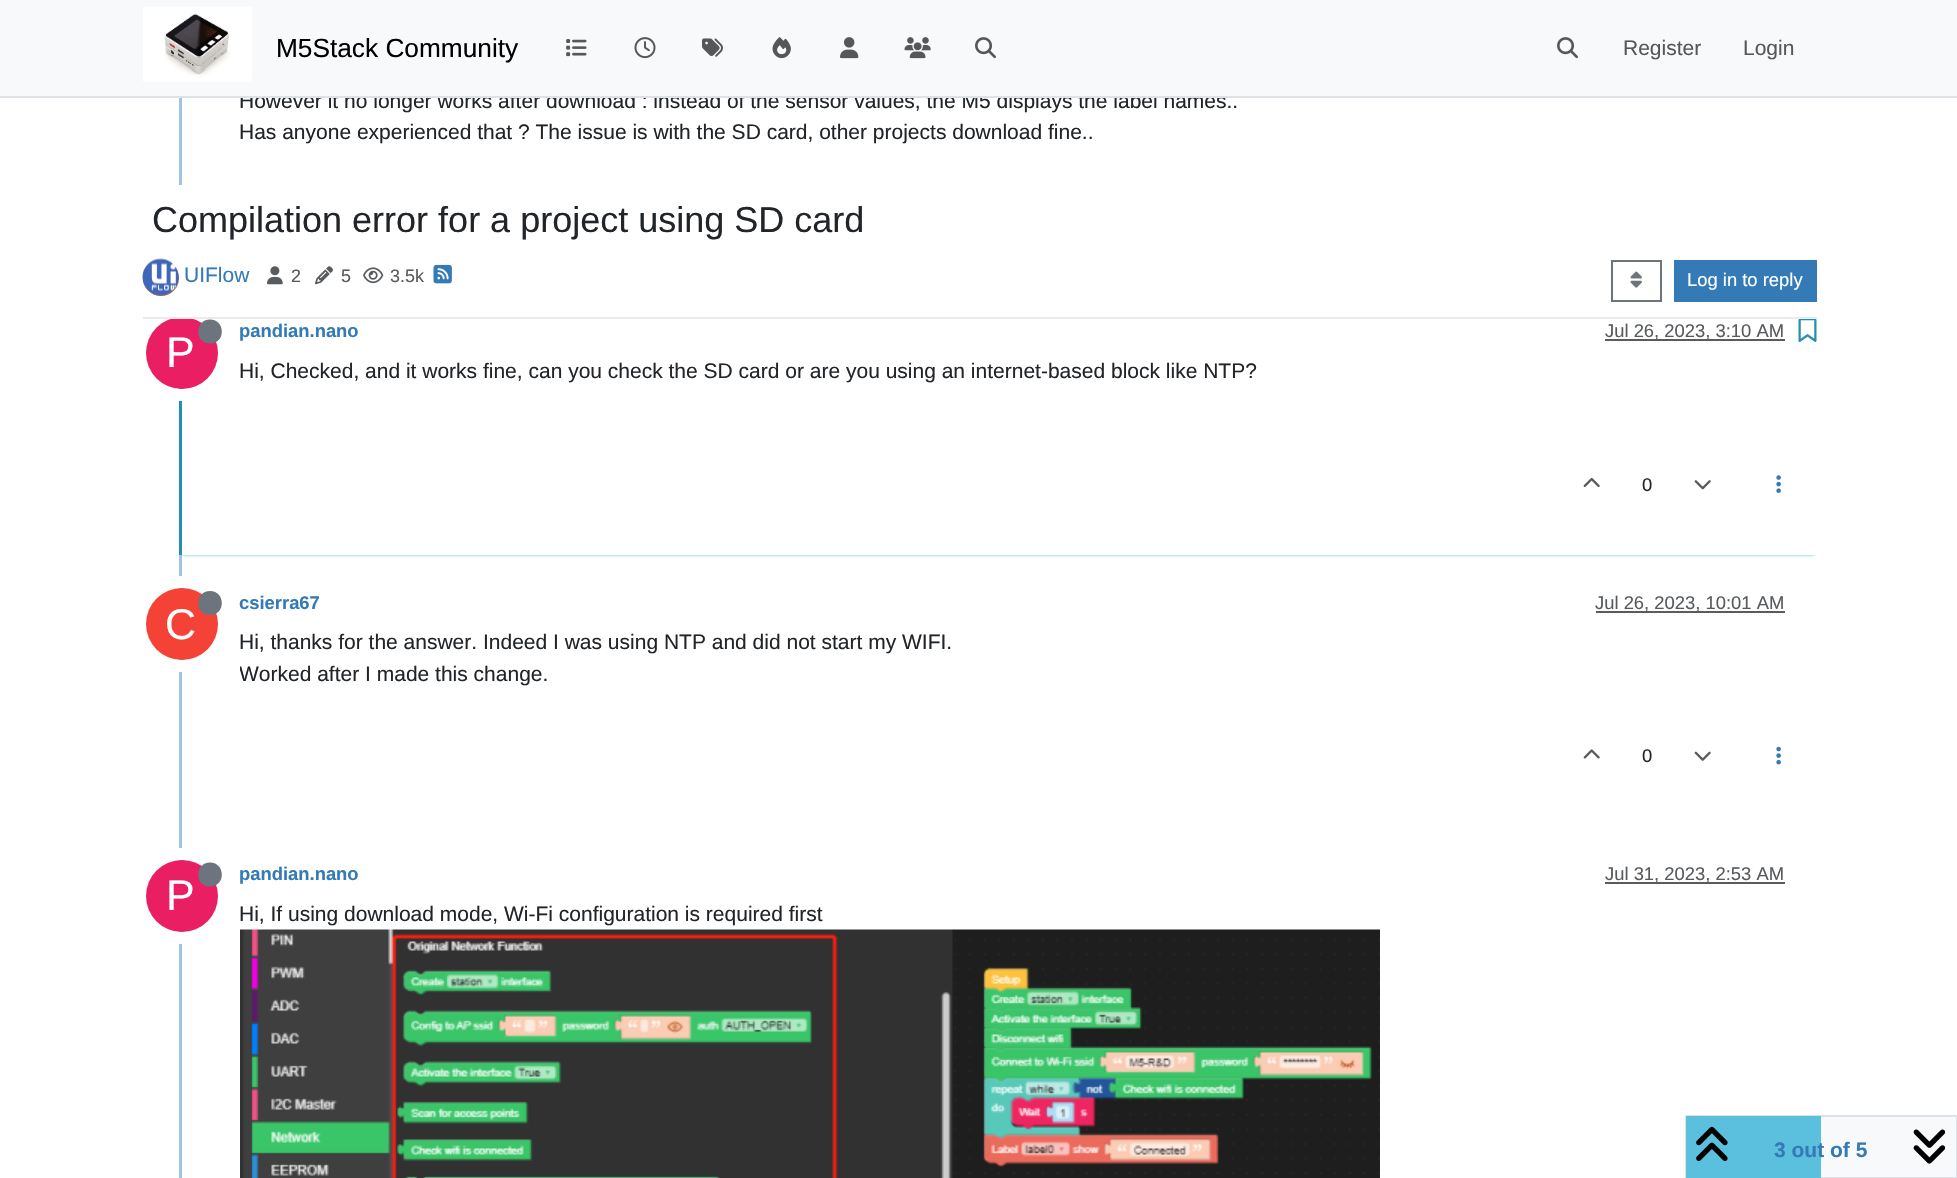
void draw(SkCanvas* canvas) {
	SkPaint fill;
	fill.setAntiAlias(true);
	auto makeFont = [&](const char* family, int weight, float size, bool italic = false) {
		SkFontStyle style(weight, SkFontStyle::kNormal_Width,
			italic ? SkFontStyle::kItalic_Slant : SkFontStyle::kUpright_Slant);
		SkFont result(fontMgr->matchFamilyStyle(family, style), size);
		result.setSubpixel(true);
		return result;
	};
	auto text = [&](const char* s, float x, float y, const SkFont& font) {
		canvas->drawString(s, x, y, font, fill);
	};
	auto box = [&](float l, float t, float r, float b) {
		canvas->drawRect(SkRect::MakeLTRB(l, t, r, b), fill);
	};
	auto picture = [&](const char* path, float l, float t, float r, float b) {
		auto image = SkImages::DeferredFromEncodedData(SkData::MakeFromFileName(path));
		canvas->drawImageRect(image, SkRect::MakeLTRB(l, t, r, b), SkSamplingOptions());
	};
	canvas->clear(0xFFFFFFFF);
	fill.setColor(0xFFA0C4E4);
	box(179, 98, 182, 185);
	canvas->save();
	canvas->clipPath(SkPathBuilder(SkPathFillType::kEvenOdd).moveTo(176, 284).lineTo(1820, 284).lineTo(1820, 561).lineTo(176, 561).close().moveTo(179, 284).lineTo(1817, 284).lineTo(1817, 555).lineTo(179, 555).close().detach(), true);
	fill.setColor(0xFF5BC0DE);
	fill.setMaskFilter(SkMaskFilter::MakeBlur(kNormal_SkBlurStyle, 1.5f));
	canvas->drawRect(SkRect::MakeLTRB(182, 290, 1814, 555), fill);
	fill.setMaskFilter(nullptr);
	canvas->restore();
	fill.setColor(0xFF2390B0);
	box(179, 388, 182, 555);
	fill.setColor(0xFF595C5F);
	box(1605, 339, 1785, 341);
	picture("image8.png", 1798, 319, 1817, 342);
	fill.setStyle(SkPaint::kStroke_Style);
	fill.setStrokeWidth(12);
	fill.setColor(0xFFFFFFFF);
	canvas->drawCircle(182, 353, 42, fill);
	fill.setStyle(SkPaint::kFill_Style);
	fill.setColor(0xFFE91E63);
	canvas->drawCircle(182, 353, 36, fill);
	fill.setColor(0xFF6C757D);
	canvas->drawPath(SkPathBuilder().moveTo(210, 343.5f).cubicTo(226, 343.5f, 225.5f, 319.5f, 210, 319.5f).cubicTo(194.5f, 319.5f, 194, 343.5f, 210, 343.5f).close().detach(), fill);
	picture("image9.png", 1583, 477, 1600, 487);
	picture("image10.png", 1694, 480, 1711, 490);
	picture("image11.png", 1776, 475, 1781, 493);
	fill.setColor(0xFFA0C4E4);
	box(179, 555, 182, 1178);
	fill.setColor(0xFF595C5F);
	box(1596, 611, 1785, 613);
	fill.setStyle(SkPaint::kStroke_Style);
	fill.setColor(0xFFFFFFFF);
	canvas->drawCircle(182, 624, 42, fill);
	fill.setStyle(SkPaint::kFill_Style);
	fill.setColor(0xFFF44336);
	canvas->drawCircle(182, 624, 36, fill);
	fill.setColor(0xFF6C757D);
	canvas->drawPath(SkPathBuilder().moveTo(210, 615).cubicTo(226, 615, 225.5f, 591, 210, 591).cubicTo(194.5f, 591, 194, 615, 210, 615).close().detach(), fill);
	picture("image12.png", 1583, 749, 1600, 759);
	picture("image13.png", 1694, 751, 1711, 761);
	picture("image14.png", 1776, 746, 1781, 765);
	fill.setColor(0xFF595C5F);
	box(1605, 882, 1785, 884);
	fill.setStyle(SkPaint::kStroke_Style);
	fill.setColor(0xFFFFFFFF);
	canvas->drawCircle(182, 896, 42, fill);
	fill.setStyle(SkPaint::kFill_Style);
	fill.setColor(0xFFE91E63);
	canvas->drawCircle(182, 896, 36, fill);
	fill.setColor(0xFF6C757D);
	canvas->drawPath(SkPathBuilder().moveTo(210, 886.5f).cubicTo(226, 886.5f, 225.5f, 862.5f, 210, 862.5f).cubicTo(194.5f, 862.5f, 194, 886.5f, 210, 886.5f).close().detach(), fill);
	picture("image15.png", 240, 929, 1380, 1178);
	fill.setColor(0xFFFFFFFF);
	box(1816, 291, 1817, 317);
	fill.setColor(0xFFE9ECEF);
	box(143, 317, 1817, 319);
	fill.setColor(0xFFA16946);
	canvas->drawCircle(161, 278, 18, fill);
	picture("image16.png", 142, 258, 179, 296);
	picture("image17.png", 267, 266, 283, 285);
	picture("image18.png", 315, 266, 333, 285);
	picture("image19.png", 363, 267, 384, 284);
	picture("image20.png", 433, 264, 452, 284);
	fill.setStyle(SkPaint::kStroke_Style);
	fill.setStrokeWidth(2);
	fill.setColor(0xFF6C757D);
	canvas->drawRect(SkRect::MakeLTRB(1612, 261, 1661, 301), fill);
	picture("image21.png", 1630, 271, 1642, 288);
	fill.setStyle(SkPaint::kFill_Style);
	fill.setColor(0xFF337AB7);
	box(1674, 260, 1817, 302);
	fill.setColor(0xFFF8F9FA);
	box(1821, 1117, 1956, 1177);
	fill.setStyle(SkPaint::kStroke_Style);
	fill.setColor(0xFFDEE2E6);
	canvas->drawRect(SkRect::MakeLTRB(1686, 1116, 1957, 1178), fill);
	fill.setStyle(SkPaint::kFill_Style);
	fill.setColor(0xFF5BC0DE);
	box(1686, 1116, 1821, 1178);
	picture("image22.png", 1696, 1126, 1728, 1161);
	picture("image23.png", 1913, 1129, 1946, 1164);
	auto font1 = makeFont("Liberation Sans", 400, 21);
	fill.setColor(0xFF212529);
	text("However it no longer works after download : instead of the sensor values, the M5 displays the label names..", 239, 108, font1);
	fill.setColor(0xFFF8F9FA);
	box(0, 0, 1957, 96);
	picture("image7.png", 1557, 37, 1578, 59);
	auto font2 = makeFont("Liberation Sans", 400, 26.25f);
	fill.setColor(0xFF000000);
	text("M5Stack Community", 276, 57, font2);
	fill.setColor(0xFF575758);
	text("Login", 1743, 55, font1);
	text("Register", 1623, 55, font1);
	picture("image7.png", 975, 37, 996, 59);
	picture("image6.png", 904, 37, 931, 59);
	picture("image5.png", 840, 37, 859, 59);
	picture("image4.png", 772, 37, 791, 59);
	picture("image3.png", 702, 38, 723, 57);
	picture("image2.png", 634, 37, 656, 59);
	picture("image1.png", 566, 39, 587, 57);
	picture("image0.png", 143, 7, 252, 82);
	fill.setColor(0xFFDEE2E6);
	box(0, 96, 1957, 98);
	fill.setColor(0xFF212529);
	text("Has anyone experienced that ? The issue is with the SD card, other projects download fine..", 239, 139, font1);
	auto font3 = makeFont("Liberation Sans", 700, 18.4f);
	fill.setColor(0xFF337AB7);
	text("pandian.nano", 239, 337, font3);
	auto font4 = makeFont("Liberation Sans", 400, 18.4f);
	fill.setColor(0xFF585B5E);
	text("Jul 26, 2023, 3:10 AM", 1605, 337, font4);
	auto font5 = makeFont("Liberation Sans", 400, 43);
	fill.setColor(0xFFFFFFFF);
	text("P", 166, 367, font5);
	fill.setColor(0xFF212529);
	text("Hi, Checked, and it works fine, can you check the SD card or are you using an internet-based block like NTP?", 239, 378, font1);
	text("0", 1642, 491, font4);
	fill.setColor(0xFF337AB7);
	text("csierra67", 239, 609, font3);
	fill.setColor(0xFF585B5E);
	text("Jul 26, 2023, 10:01 AM", 1595, 609, font4);
	fill.setColor(0xFFFFFFFF);
	text("C", 165, 639, font5);
	fill.setColor(0xFF212529);
	text("Hi, thanks for the answer. Indeed I was using NTP and did not start my WIFI.", 239, 649, font1);
	canvas->save();
	canvas->clipRect(SkRect::MakeLTRB(240, 627, 1817, 717));
	text("Worked after I made this change.", 239, 681, font1);
	canvas->restore();
	text("0", 1642, 762, font4);
	fill.setColor(0xFF337AB7);
	text("pandian.nano", 239, 880, font3);
	fill.setColor(0xFF585B5E);
	text("Jul 31, 2023, 2:53 AM", 1605, 880, font4);
	fill.setColor(0xFFFFFFFF);
	text("P", 166, 910, font5);
	fill.setColor(0xFF212529);
	text("Hi, If using download mode, Wi-Fi configuration is required first", 239, 921, font1);
	auto font6 = makeFont("Liberation Sans", 400, 36);
	text("Compilation error for a project using SD card", 152, 232, font6);
	fill.setColor(0xFF337AB7);
	text("UIFlow", 184, 282, font1);
	auto font7 = makeFont("Liberation Sans", 400, 18);
	fill.setColor(0xFF585B5E);
	text("2", 291, 282, font7);
	text("5", 341, 282, font7);
	text("3.5k", 390, 282, font7);
	fill.setColor(0xFFFFFFFF);
	text("Log in to reply", 1687, 286, font4);
	auto font8 = makeFont("Liberation Sans", 700, 21);
	fill.setColor(0xFF337AB7);
	text("3 out of 5", 1774, 1157, font8);
}
